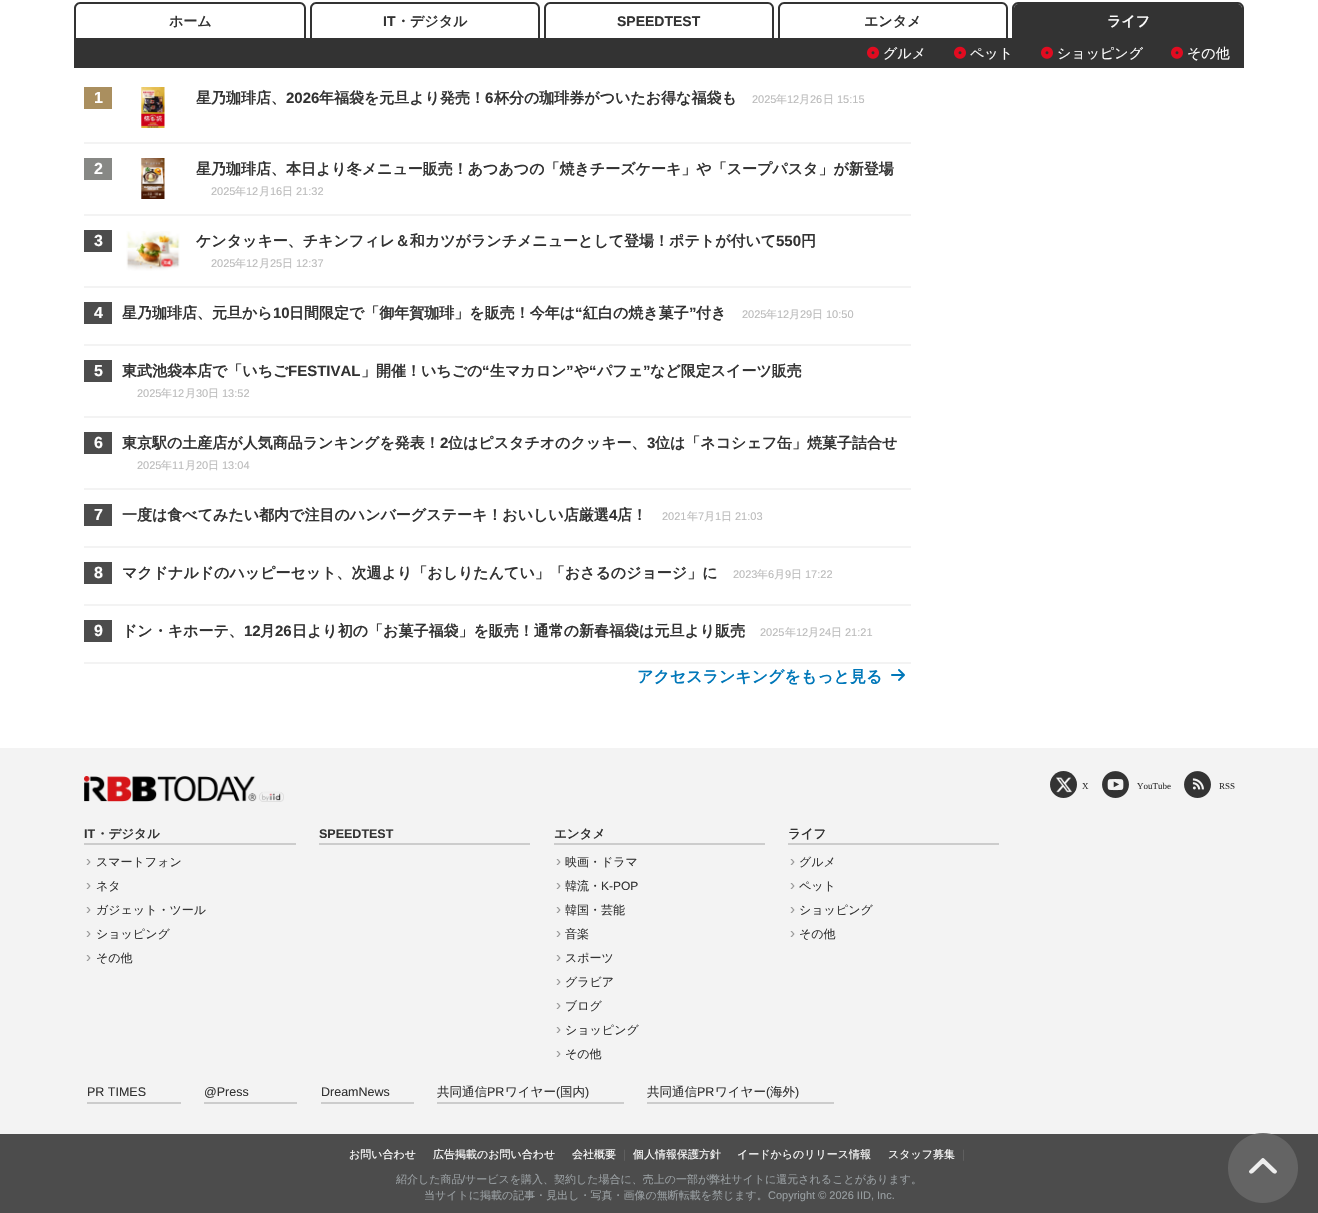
void draw(SkCanvas* canvas) {
	SkPaint fill;
	fill.setAntiAlias(true);
	auto makeFont = [&](const char* family, int weight, float size, bool italic = false) {
		SkFontStyle style(weight, SkFontStyle::kNormal_Width,
			italic ? SkFontStyle::kItalic_Slant : SkFontStyle::kUpright_Slant);
		SkFont result(fontMgr->matchFamilyStyle(family, style), size);
		result.setSubpixel(true);
		return result;
	};
	auto text = [&](const char* s, float x, float y, const SkFont& font) {
		canvas->drawString(s, x, y, font, fill);
	};
	auto box = [&](float l, float t, float r, float b) {
		canvas->drawRect(SkRect::MakeLTRB(l, t, r, b), fill);
	};
	auto picture = [&](const char* path, float l, float t, float r, float b) {
		auto image = SkImages::DeferredFromEncodedData(SkData::MakeFromFileName(path));
		canvas->drawImageRect(image, SkRect::MakeLTRB(l, t, r, b), SkSamplingOptions());
	};
	canvas->clear(0xFFFFFFFF);
	fill.setColor(0xFF333333);
	box(74, 38, 1244, 68);
	canvas->drawPath(SkPathBuilder(SkPathFillType::kEvenOdd).moveTo(316, 2).lineTo(534, 2).cubicTo(537, 2, 540, 5, 540, 8).lineTo(540, 38).lineTo(310, 38).lineTo(310, 8).cubicTo(310, 5, 313, 2, 316, 2).close().moveTo(316, 4).lineTo(534, 4).cubicTo(536, 4, 538, 6, 538, 8).lineTo(538, 38).lineTo(312, 38).lineTo(312, 8).cubicTo(312, 6, 314, 4, 316, 4).close().detach(), fill);
	canvas->drawPath(SkPathBuilder(SkPathFillType::kEvenOdd).moveTo(784, 2).lineTo(1002, 2).cubicTo(1005, 2, 1008, 5, 1008, 8).lineTo(1008, 38).lineTo(778, 38).lineTo(778, 8).cubicTo(778, 5, 781, 2, 784, 2).close().moveTo(784, 4).lineTo(1002, 4).cubicTo(1004, 4, 1006, 6, 1006, 8).lineTo(1006, 38).lineTo(780, 38).lineTo(780, 8).cubicTo(780, 6, 782, 4, 784, 4).close().detach(), fill);
	canvas->drawPath(SkPathBuilder(SkPathFillType::kEvenOdd).moveTo(80, 2).lineTo(300, 2).cubicTo(303, 2, 306, 5, 306, 8).lineTo(306, 38).lineTo(74, 38).lineTo(74, 8).cubicTo(74, 5, 77, 2, 80, 2).close().moveTo(80, 4).lineTo(300, 4).cubicTo(302, 4, 304, 6, 304, 8).lineTo(304, 38).lineTo(76, 38).lineTo(76, 8).cubicTo(76, 6, 78, 4, 80, 4).close().detach(), fill);
	canvas->drawPath(SkPathBuilder(SkPathFillType::kEvenOdd).moveTo(550, 2).lineTo(768, 2).cubicTo(771, 2, 774, 5, 774, 8).lineTo(774, 38).lineTo(544, 38).lineTo(544, 8).cubicTo(544, 5, 547, 2, 550, 2).close().moveTo(550, 4).lineTo(768, 4).cubicTo(770, 4, 772, 6, 772, 8).lineTo(772, 38).lineTo(546, 38).lineTo(546, 8).cubicTo(546, 6, 548, 4, 550, 4).close().detach(), fill);
	canvas->drawPath(SkPathBuilder().moveTo(1018, 4).lineTo(1238, 4).cubicTo(1240, 4, 1242, 6, 1242, 8).lineTo(1242, 38).lineTo(1014, 38).lineTo(1014, 8).cubicTo(1014, 6, 1016, 4, 1018, 4).close().detach(), fill);
	canvas->drawPath(SkPathBuilder(SkPathFillType::kEvenOdd).moveTo(1018, 2).lineTo(1238, 2).cubicTo(1241, 2, 1244, 5, 1244, 8).lineTo(1244, 38).lineTo(1012, 38).lineTo(1012, 8).cubicTo(1012, 5, 1015, 2, 1018, 2).close().moveTo(1018, 4).lineTo(1238, 4).cubicTo(1240, 4, 1242, 6, 1242, 8).lineTo(1242, 38).lineTo(1014, 38).lineTo(1014, 8).cubicTo(1014, 6, 1016, 4, 1018, 4).close().detach(), fill);
	picture("image0.png", 867, 46, 879, 59);
	picture("image0.png", 954, 46, 966, 59);
	picture("image0.png", 1041, 46, 1053, 59);
	picture("image0.png", 1171, 46, 1183, 59);
	fill.setColor(0xFFF3F3F3);
	box(84, 142, 911, 144);
	fill.setColor(0xFFAA8F5F);
	box(84, 87, 112, 109);
	picture("image1.png", 141, 87, 165, 128);
	fill.setColor(0xFFF3F3F3);
	box(84, 214, 911, 216);
	fill.setColor(0xFF878885);
	box(84, 158, 112, 180);
	picture("image2.png", 141, 158, 165, 199);
	fill.setColor(0xFFF3F3F3);
	box(84, 286, 911, 288);
	fill.setColor(0xFF4C4C4C);
	box(84, 230, 112, 252);
	picture("image3.png", 126, 231, 180, 271);
	fill.setColor(0xFFF3F3F3);
	box(84, 344, 911, 346);
	fill.setColor(0xFF4C4C4C);
	box(84, 302, 112, 324);
	fill.setColor(0xFFF3F3F3);
	box(84, 416, 911, 418);
	fill.setColor(0xFF4C4C4C);
	box(84, 360, 112, 382);
	fill.setColor(0xFFF3F3F3);
	box(84, 488, 911, 490);
	fill.setColor(0xFF4C4C4C);
	box(84, 432, 112, 454);
	fill.setColor(0xFFF3F3F3);
	box(84, 546, 911, 548);
	fill.setColor(0xFF4C4C4C);
	box(84, 504, 112, 526);
	fill.setColor(0xFFF3F3F3);
	box(84, 604, 911, 606);
	fill.setColor(0xFF4C4C4C);
	box(84, 562, 112, 584);
	fill.setColor(0xFFF3F3F3);
	box(84, 662, 911, 664);
	fill.setColor(0xFF4C4C4C);
	box(84, 620, 112, 642);
	picture("image4.png", 891, 669, 905, 681);
	fill.setColor(0xFFF3F3F3);
	box(0, 748, 1318, 1134);
	picture("image5.png", 84, 776, 284, 802);
	fill.setColor(0xFF333333);
	canvas->drawCircle(1063.5f, 784.5f, 13.5f, fill);
	picture("image6.png", 1056, 777, 1072, 793);
	picture("image7.png", 1102, 771, 1129, 798);
	picture("image8.png", 1184, 771, 1211, 798);
	fill.setColor(0xFFCCCCCC);
	box(84, 843, 296, 845);
	box(319, 843, 530, 845);
	box(554, 843, 765, 845);
	box(788, 843, 999, 845);
	box(87, 1102, 181, 1104);
	box(204, 1102, 297, 1104);
	box(321, 1102, 414, 1104);
	box(437, 1102, 624, 1104);
	box(647, 1102, 834, 1104);
	fill.setColor(0xFF4C4C4C);
	box(0, 1134, 1318, 1213);
	picture("image9.png", 1228, 1133, 1298, 1203);
	auto font1 = makeFont("Liberation Sans", 700, 14);
	fill.setColor(0xFF333333);
	text("IT", 383, 26, font1);
	auto font2 = makeFont("WenQuanYi Zen Hei", 700, 14);
	text("・デジタル", 396, 26, font2);
	text("エンタメ", 864, 26, font2);
	text("ホーム", 169, 26, font2);
	text("SPEEDTEST", 617, 26, font1);
	fill.setColor(0xFFFFFFFF);
	text("ライフ", 1107, 26, font2);
	auto font3 = makeFont("WenQuanYi Zen Hei", 500, 14);
	text("グルメ", 883, 58, font3);
	text("ペット", 970, 58, font3);
	text("ショッピング", 1057, 58, font3);
	text("その他", 1187, 58, font3);
	auto font4 = makeFont("Liberation Sans", 700, 16);
	text("1", 94, 103, font4);
	auto font5 = makeFont("WenQuanYi Zen Hei", 700, 15);
	fill.setColor(0xFF333333);
	text("星乃珈琲店、", 196, 103, font5);
	auto font6 = makeFont("Liberation Sans", 700, 15);
	text("2026", 286, 103, font6);
	text("年福袋を元旦より発売！", 319, 103, font5);
	text("6", 485, 103, font6);
	text("杯分の珈琲券がついたお得な福袋も", 494, 103, font5);
	auto font7 = makeFont("Liberation Sans", 400, 11);
	fill.setColor(0xFFBBBBBB);
	text("2025", 752, 103, font7);
	auto font8 = makeFont("WenQuanYi Zen Hei", 500, 11);
	text("年", 776, 103, font8);
	text("12", 787, 103, font7);
	text("月", 799, 103, font8);
	text("26", 810, 103, font7);
	text("日", 823, 103, font8);
	text("15:15", 837, 103, font7);
	fill.setColor(0xFFFFFFFF);
	text("2", 94, 174, font4);
	fill.setColor(0xFF333333);
	text("星乃珈琲店、本日より冬メニュー販売！あつあつの「焼きチーズケーキ」や「スープパスタ」が新登場", 196, 174, font5);
	fill.setColor(0xFFBBBBBB);
	text("2025", 211, 195, font7);
	text("年", 235, 195, font8);
	text("12", 246, 195, font7);
	text("月", 259, 195, font8);
	text("16", 270, 195, font7);
	text("日", 282, 195, font8);
	text("21:32", 296, 195, font7);
	fill.setColor(0xFFFFFFFF);
	text("3", 94, 246, font4);
	fill.setColor(0xFF333333);
	text("ケンタッキー、チキンフィレ＆和カツがランチメニューとして登場！ポテトが付いて", 196, 246, font5);
	text("550", 776, 246, font6);
	text("円", 801, 246, font5);
	fill.setColor(0xFFBBBBBB);
	text("2025", 211, 267, font7);
	text("年", 235, 267, font8);
	text("12", 246, 267, font7);
	text("月", 259, 267, font8);
	text("25", 270, 267, font7);
	text("日", 282, 267, font8);
	text("12:37", 296, 267, font7);
	fill.setColor(0xFFFFFFFF);
	text("4", 94, 318, font4);
	fill.setColor(0xFF333333);
	text("星乃珈琲店、元旦から", 122, 318, font5);
	text("10", 273, 318, font6);
	text("日間限定で「御年賀珈琲」を販売！今年は", 289, 318, font5);
	text("“", 575, 318, font6);
	text("紅白の焼き菓子", 583, 318, font5);
	text("”", 689, 318, font6);
	text("付き", 696, 318, font5);
	fill.setColor(0xFFBBBBBB);
	text("2025", 742, 318, font7);
	text("年", 766, 318, font8);
	text("12", 777, 318, font7);
	text("月", 789, 318, font8);
	text("29", 800, 318, font7);
	text("日", 812, 318, font8);
	text("10:50", 826, 318, font7);
	fill.setColor(0xFFFFFFFF);
	text("5", 94, 376, font4);
	fill.setColor(0xFF333333);
	text("東武池袋本店で「いちご", 122, 376, font5);
	text("FESTIVAL", 288, 376, font6);
	text("」開催！いちごの", 361, 376, font5);
	text("“", 482, 376, font6);
	text("生マカロン", 490, 376, font5);
	text("”", 566, 376, font6);
	text("や", 574, 376, font5);
	text("“", 589, 376, font6);
	text("パフェ", 597, 376, font5);
	text("”", 643, 376, font6);
	text("など限定スイーツ販売", 650, 376, font5);
	fill.setColor(0xFFBBBBBB);
	text("2025", 137, 397, font7);
	text("年", 161, 397, font8);
	text("12", 172, 397, font7);
	text("月", 185, 397, font8);
	text("30", 196, 397, font7);
	text("日", 208, 397, font8);
	text("13:52", 222, 397, font7);
	fill.setColor(0xFFFFFFFF);
	text("6", 94, 448, font4);
	fill.setColor(0xFF333333);
	text("東京駅の土産店が人気商品ランキングを発表！", 122, 448, font5);
	text("2", 440, 448, font6);
	text("位はピスタチオのクッキー、", 448, 448, font5);
	text("3", 647, 448, font6);
	text("位は「ネコシェフ缶」焼菓子詰合せ", 655, 448, font5);
	fill.setColor(0xFFBBBBBB);
	text("2025", 137, 469, font7);
	text("年", 161, 469, font8);
	text("11", 172, 469, font7);
	text("月", 185, 469, font8);
	text("20", 196, 469, font7);
	text("日", 208, 469, font8);
	text("13:04", 222, 469, font7);
	fill.setColor(0xFFFFFFFF);
	text("7", 94, 520, font4);
	fill.setColor(0xFF333333);
	text("一度は食べてみたい都内で注目のハンバーグステーキ！おいしい店厳選", 122, 520, font5);
	text("4", 609, 520, font6);
	text("店！", 617, 520, font5);
	fill.setColor(0xFFBBBBBB);
	text("2021", 662, 520, font7);
	text("年", 687, 520, font8);
	text("7", 698, 520, font7);
	text("月", 704, 520, font8);
	text("1", 715, 520, font7);
	text("日", 721, 520, font8);
	text("21:03", 735, 520, font7);
	fill.setColor(0xFFFFFFFF);
	text("8", 94, 578, font4);
	fill.setColor(0xFF333333);
	text("マクドナルドのハッピーセット、次週より「おしりたんてい」「おさるのジョージ」に", 122, 578, font5);
	fill.setColor(0xFFBBBBBB);
	text("2023", 733, 578, font7);
	text("年", 757, 578, font8);
	text("6", 768, 578, font7);
	text("月", 774, 578, font8);
	text("9", 785, 578, font7);
	text("日", 791, 578, font8);
	text("17:22", 805, 578, font7);
	fill.setColor(0xFFFFFFFF);
	text("9", 94, 636, font4);
	fill.setColor(0xFF333333);
	text("ドン・キホーテ、", 122, 636, font5);
	text("12", 244, 636, font6);
	text("月", 260, 636, font5);
	text("26", 275, 636, font6);
	text("日より初の「お菓子福袋」を販売！通常の新春福袋は元旦より販売", 292, 636, font5);
	fill.setColor(0xFFBBBBBB);
	text("2025", 760, 636, font7);
	text("年", 785, 636, font8);
	text("12", 796, 636, font7);
	text("月", 808, 636, font8);
	text("24", 819, 636, font7);
	text("日", 831, 636, font8);
	text("21:21", 845, 636, font7);
	auto font9 = makeFont("WenQuanYi Zen Hei", 700, 16);
	fill.setColor(0xFF0077B9);
	text("アクセスランキングをもっと見る", 637, 682, font9);
	auto font10 = makeFont("Liberation Serif", 400, 9);
	fill.setColor(0xFF333333);
	text("X", 1082, 789, font10);
	text("YouTube", 1137, 789, font10);
	text("RSS", 1219, 789, font10);
	auto font11 = makeFont("Liberation Sans", 700, 12.5f);
	text("IT", 84, 838, font11);
	auto font12 = makeFont("WenQuanYi Zen Hei", 700, 12.5f);
	text("・デジタル", 96, 838, font12);
	auto font13 = makeFont("Liberation Sans", 400, 15);
	fill.setColor(0xFF999999);
	text("›", 86, 866, font13);
	auto font14 = makeFont("WenQuanYi Zen Hei", 500, 12);
	fill.setColor(0xFF333333);
	text("スマートフォン", 96, 866, font14);
	fill.setColor(0xFF999999);
	text("›", 86, 890, font13);
	fill.setColor(0xFF333333);
	text("ネタ", 96, 890, font14);
	fill.setColor(0xFF999999);
	text("›", 86, 914, font13);
	fill.setColor(0xFF333333);
	text("ガジェット・ツール", 96, 914, font14);
	fill.setColor(0xFF999999);
	text("›", 86, 938, font13);
	fill.setColor(0xFF333333);
	text("ショッピング", 96, 938, font14);
	fill.setColor(0xFF999999);
	text("›", 86, 962, font13);
	fill.setColor(0xFF333333);
	text("その他", 96, 962, font14);
	text("SPEEDTEST", 319, 838, font11);
	text("エンタメ", 554, 838, font12);
	fill.setColor(0xFF999999);
	text("›", 556, 866, font13);
	fill.setColor(0xFF333333);
	text("映画・ドラマ", 565, 866, font14);
	fill.setColor(0xFF999999);
	text("›", 556, 890, font13);
	fill.setColor(0xFF333333);
	text("韓流・", 565, 890, font14);
	auto font15 = makeFont("Liberation Sans", 400, 12);
	text("K-POP", 601, 890, font15);
	fill.setColor(0xFF999999);
	text("›", 556, 914, font13);
	fill.setColor(0xFF333333);
	text("韓国・芸能", 565, 914, font14);
	fill.setColor(0xFF999999);
	text("›", 556, 938, font13);
	fill.setColor(0xFF333333);
	text("音楽", 565, 938, font14);
	fill.setColor(0xFF999999);
	text("›", 556, 962, font13);
	fill.setColor(0xFF333333);
	text("スポーツ", 565, 962, font14);
	fill.setColor(0xFF999999);
	text("›", 556, 986, font13);
	fill.setColor(0xFF333333);
	text("グラビア", 565, 986, font14);
	fill.setColor(0xFF999999);
	text("›", 556, 1010, font13);
	fill.setColor(0xFF333333);
	text("ブログ", 565, 1010, font14);
	fill.setColor(0xFF999999);
	text("›", 556, 1034, font13);
	fill.setColor(0xFF333333);
	text("ショッピング", 565, 1034, font14);
	fill.setColor(0xFF999999);
	text("›", 556, 1058, font13);
	fill.setColor(0xFF333333);
	text("その他", 565, 1058, font14);
	text("ライフ", 788, 838, font12);
	fill.setColor(0xFF999999);
	text("›", 790, 866, font13);
	fill.setColor(0xFF333333);
	text("グルメ", 799, 866, font14);
	fill.setColor(0xFF999999);
	text("›", 790, 890, font13);
	fill.setColor(0xFF333333);
	text("ペット", 799, 890, font14);
	fill.setColor(0xFF999999);
	text("›", 790, 914, font13);
	fill.setColor(0xFF333333);
	text("ショッピング", 799, 914, font14);
	fill.setColor(0xFF999999);
	text("›", 790, 938, font13);
	fill.setColor(0xFF333333);
	text("その他", 799, 938, font14);
	auto font16 = makeFont("Liberation Sans", 400, 12.5f);
	text("PR TIMES", 87, 1096, font16);
	text("@Press", 204, 1096, font16);
	text("DreamNews", 321, 1096, font16);
	auto font17 = makeFont("WenQuanYi Zen Hei", 500, 12.5f);
	text("共同通信", 437, 1096, font17);
	text("PR", 487, 1096, font16);
	text("ワイヤー", 505, 1096, font17);
	text("(", 556, 1096, font16);
	text("国内", 560, 1096, font17);
	text(")", 585, 1096, font16);
	text("共同通信", 647, 1096, font17);
	text("PR", 697, 1096, font16);
	text("ワイヤー", 715, 1096, font17);
	text("(", 766, 1096, font16);
	text("海外", 770, 1096, font17);
	text(")", 795, 1096, font16);
	fill.setColor(0xFFFFFFFF);
	text("お問い合わせ", 349, 1158, font8);
	text("広告掲載のお問い合わせ", 433, 1158, font8);
	text("会社概要", 572, 1158, font8);
	fill.setColor(0xFF666666);
	text("｜", 619, 1158, font8);
	fill.setColor(0xFFFFFFFF);
	text("個人情報保護方針", 633, 1158, font8);
	text("イードからのリリース情報", 737, 1158, font8);
	text("スタッフ募集", 888, 1158, font8);
	fill.setColor(0xFF666666);
	text("｜", 958, 1158, font8);
	fill.setColor(0xFF989EA1);
	text("紹介した商品", 396, 1183, font8);
	text("/", 462, 1183, font7);
	text("サービスを購入、契約した場合に、売上の一部が弊社サイトに還元されることがあります。", 465, 1183, font8);
	text("当サイトに掲載の記事・見出し・写真・画像の無断転載を禁じます。", 424, 1199, font8);
	text("Copyright © 2026 IID, Inc.", 768, 1199, font7);
}
